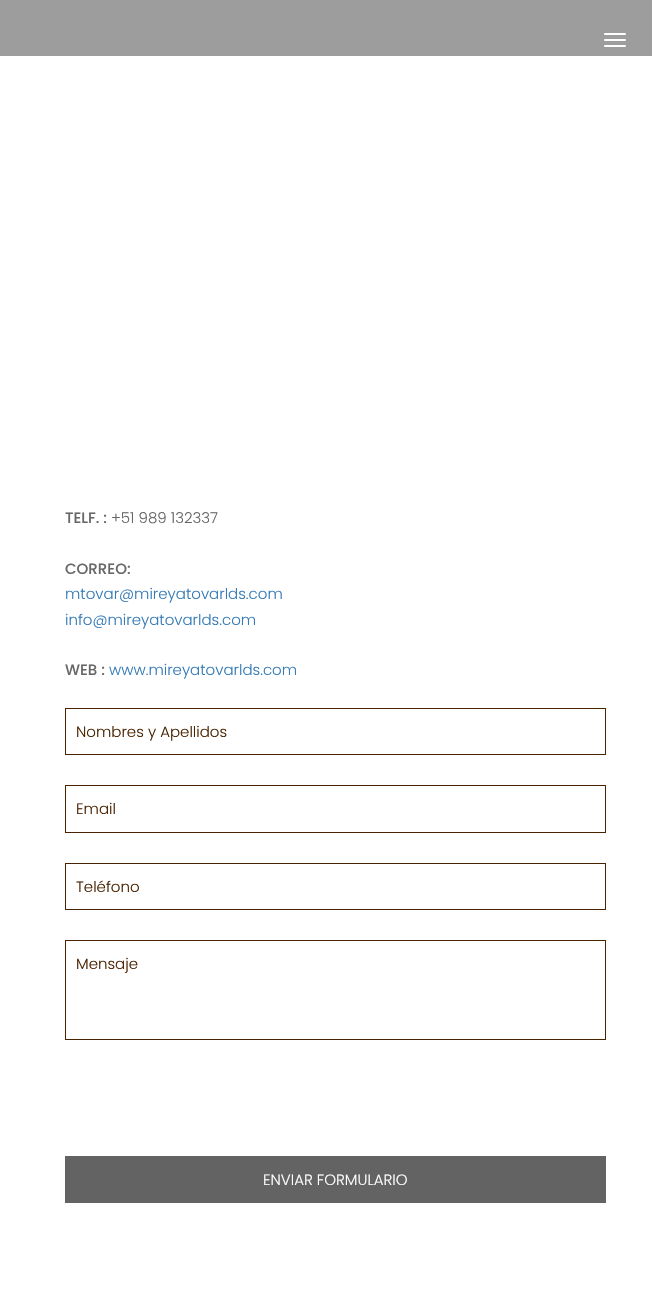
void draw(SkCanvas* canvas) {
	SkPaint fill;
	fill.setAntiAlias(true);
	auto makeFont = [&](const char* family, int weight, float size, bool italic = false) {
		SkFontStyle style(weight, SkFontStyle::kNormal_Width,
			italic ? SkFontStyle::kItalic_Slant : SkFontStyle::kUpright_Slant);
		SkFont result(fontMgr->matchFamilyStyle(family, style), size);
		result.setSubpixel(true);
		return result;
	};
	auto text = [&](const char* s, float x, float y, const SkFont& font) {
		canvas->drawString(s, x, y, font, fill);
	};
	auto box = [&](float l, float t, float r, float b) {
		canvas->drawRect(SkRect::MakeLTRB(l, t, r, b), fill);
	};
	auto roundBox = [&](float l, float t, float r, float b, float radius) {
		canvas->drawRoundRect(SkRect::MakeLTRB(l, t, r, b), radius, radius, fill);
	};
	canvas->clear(0xFFFFFFFF);
	fill.setColor(0xFF9D9D9D);
	box(0, 0, 652, 56);
	fill.setColor(0xFFFFFFFF);
	roundBox(604, 33, 626, 35, 1);
	roundBox(604, 39, 626, 41, 1);
	roundBox(604, 45, 626, 47, 1);
	fill.setStyle(SkPaint::kStroke_Style);
	fill.setStrokeWidth(1);
	fill.setColor(0xFF492200);
	canvas->drawRect(SkRect::MakeLTRB(65.5f, 708.5f, 605.5f, 754.5f), fill);
	canvas->drawRect(SkRect::MakeLTRB(65.5f, 785.5f, 605.5f, 832.5f), fill);
	canvas->drawRect(SkRect::MakeLTRB(65.5f, 863.5f, 605.5f, 909.5f), fill);
	canvas->drawRect(SkRect::MakeLTRB(65.5f, 940.5f, 605.5f, 1039.5f), fill);
	fill.setStyle(SkPaint::kFill_Style);
	fill.setColor(0xFF636363);
	box(65, 1156, 606, 1203);
	auto font1 = makeFont("Poppins", 500, 15);
	fill.setColor(0xFF676767);
	text("TELF. :", 65, 523, font1);
	auto font2 = makeFont("Poppins", 300, 15);
	text("+51 989 132337", 111, 523, font2);
	text("CORREO:", 65, 574, font1);
	fill.setColor(0xFF337AB7);
	text("mtovar@mireyatovarlds.com", 65, 599, font2);
	text("info@mireyatovarlds.com", 65, 625, font2);
	fill.setColor(0xFF676767);
	text("WEB :", 65, 675, font1);
	fill.setColor(0xFF337AB7);
	text("www.mireyatovarlds.com", 109, 675, font2);
	fill.setColor(0xFF492200);
	text("Nombres y Apellidos", 76, 737, font2);
	text("Email", 76, 814, font2);
	text("Teléfono", 76, 892, font2);
	text("Mensaje", 76, 969, font2);
	fill.setColor(0xFFFFFFFF);
	text("ENVIAR FORMULARIO", 263, 1185, font2);
}
